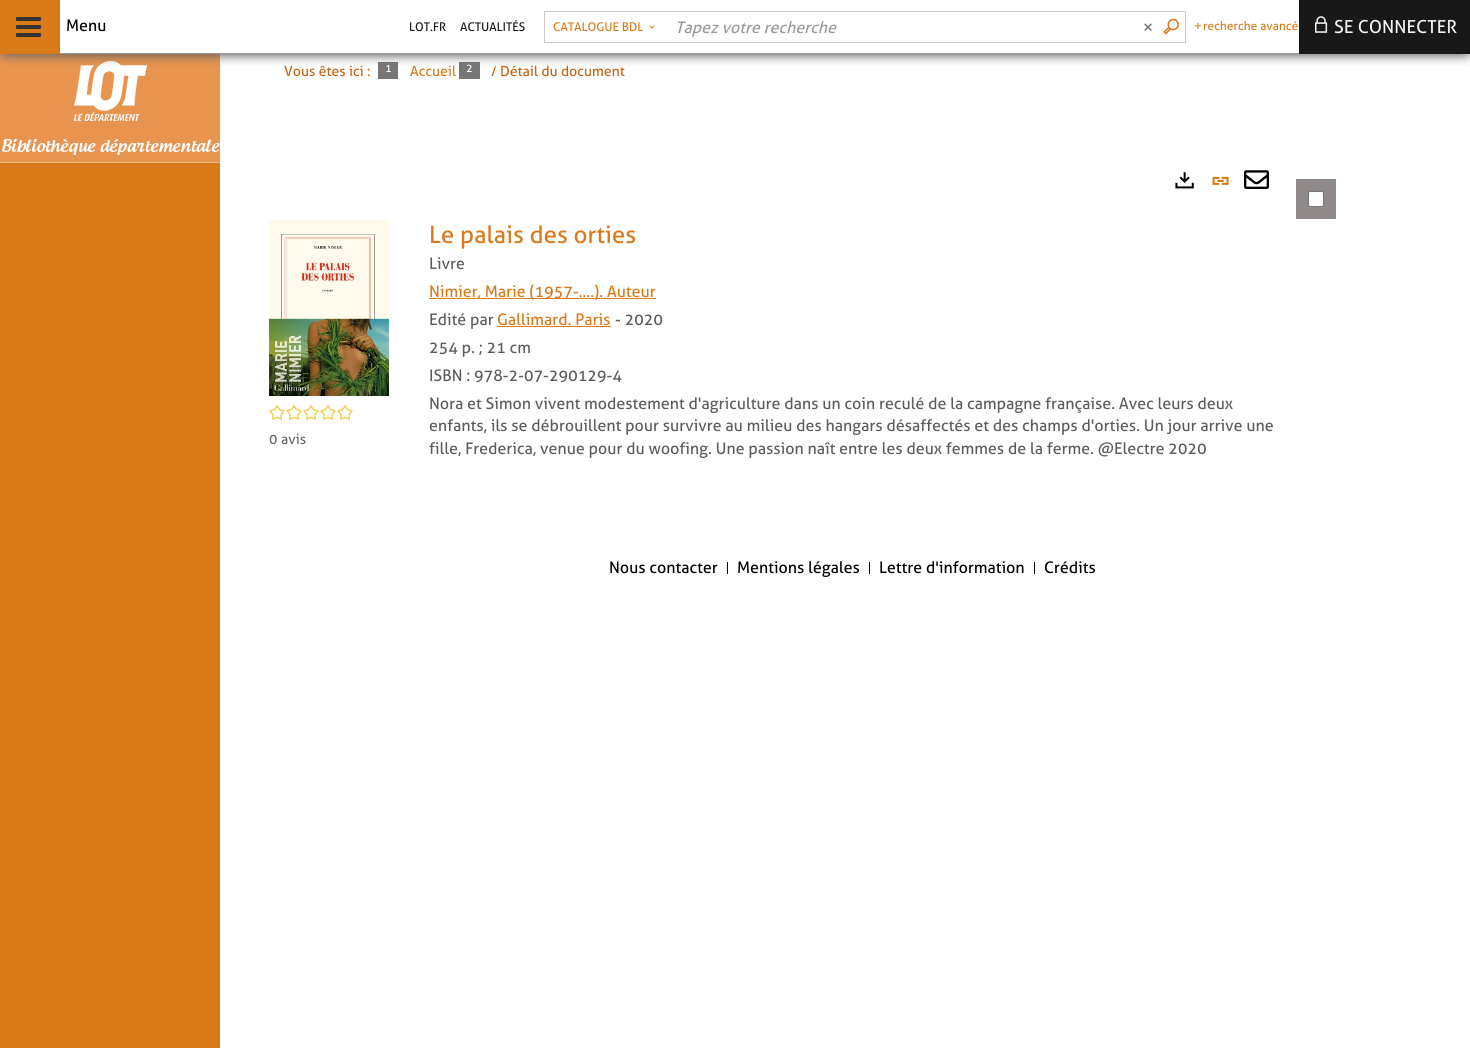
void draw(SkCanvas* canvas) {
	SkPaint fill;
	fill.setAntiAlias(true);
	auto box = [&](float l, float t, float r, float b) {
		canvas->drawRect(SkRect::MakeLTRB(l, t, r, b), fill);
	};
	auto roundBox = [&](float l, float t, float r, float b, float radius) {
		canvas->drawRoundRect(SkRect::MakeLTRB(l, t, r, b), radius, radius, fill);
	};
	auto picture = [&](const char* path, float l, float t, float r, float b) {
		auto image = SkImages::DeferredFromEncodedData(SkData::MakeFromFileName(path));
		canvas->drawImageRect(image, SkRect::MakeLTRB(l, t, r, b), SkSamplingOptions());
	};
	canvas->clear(0xFFFFFFFF);
	picture("image0.png", 0, 54, 220, 1048);
	fill.setColor(0xFF767676);
	box(378, 62, 398, 79);
	box(459, 62, 480, 79);
	picture("image12.png", 284, 65, 370, 77);
	picture("image13.png", 386, 64, 391, 72);
	picture("image14.png", 410, 65, 456, 77);
	picture("image15.png", 466, 64, 472, 72);
	fill.setColor(0xFFC76310);
	canvas->drawPath(SkPathBuilder().moveTo(495, 66).lineTo(496, 66).lineTo(493, 76).lineTo(491.5f, 76).close().detach(), fill);
	picture("image16.png", 501, 65, 625, 77);
	canvas->save();
	canvas->clipRect(SkRect::MakeLTRB(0, 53, 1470, 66));
	fill.setColor(0xFF666666);
	fill.setMaskFilter(SkMaskFilter::MakeBlur(kNormal_SkBlurStyle, 5));
	canvas->drawRect(SkRect::MakeLTRB(0, 3, 1470, 56), fill);
	fill.setMaskFilter(nullptr);
	canvas->restore();
	picture("image1.png", 410, 22, 446, 32);
	picture("image2.png", 460, 20, 525, 32);
	fill.setColor(0xFF181818);
	box(1299, 0, 1470, 54);
	picture("image3.png", 1315, 16, 1328, 33);
	picture("image4.png", 1334, 19, 1457, 34);
	fill.setStyle(SkPaint::kStroke_Style);
	fill.setStrokeWidth(1);
	fill.setColor(0xFFCBCBCB);
	canvas->drawRect(SkRect::MakeLTRB(544.5f, 11.5f, 1185.5f, 42.5f), fill);
	picture("image5.png", 553, 22, 643, 32);
	picture("image6.png", 649, 25, 655, 29);
	picture("image7.png", 678, 21, 837, 37);
	picture("image8.png", 1144, 23, 1152, 31);
	picture("image9.png", 1163, 18, 1179, 35);
	picture("image10.png", 1194, 22, 1201, 29);
	picture("image11.png", 1203, 21, 1299, 31);
	picture("image17.png", 1175, 172, 1194, 189);
	picture("image18.png", 1212, 176, 1229, 185);
	picture("image19.png", 1244, 170, 1269, 189);
	picture("image20.png", 269, 220, 389, 396);
	picture("image21.png", 269, 404, 285, 420);
	picture("image21.png", 286, 404, 302, 420);
	picture("image21.png", 303, 404, 319, 420);
	picture("image21.png", 320, 404, 336, 420);
	picture("image21.png", 337, 404, 353, 420);
	picture("image22.png", 269, 434, 277, 445);
	picture("image23.png", 281, 433, 306, 445);
	picture("image24.png", 431, 225, 635, 249);
	picture("image25.png", 430, 257, 465, 270);
	fill.setStyle(SkPaint::kFill_Style);
	fill.setColor(0xFFDA7918);
	box(429, 298, 656, 299);
	picture("image26.png", 430, 284, 656, 300);
	picture("image27.png", 430, 313, 494, 329);
	picture("image28.png", 497, 313, 610, 326);
	picture("image29.png", 615, 314, 663, 326);
	box(497, 326, 611, 327);
	picture("image30.png", 430, 342, 530, 357);
	picture("image31.png", 430, 369, 470, 382);
	picture("image32.png", 474, 369, 622, 383);
	picture("image33.png", 430, 397, 1233, 413);
	picture("image34.png", 429, 419, 1273, 435);
	picture("image35.png", 429, 442, 1206, 458);
	fill.setColor(0xFF8E8888);
	box(1296, 179, 1336, 219);
	fill.setColor(0xFFFFFFFF);
	canvas->drawRoundRect(SkRect::MakeLTRB(1308.5f, 191.5f, 1323.5f, 206.5f), 1.5f, 1.5f, fill);
	fill.setStyle(SkPaint::kStroke_Style);
	fill.setColor(0xFF767676);
	canvas->drawRoundRect(SkRect::MakeLTRB(1308.5f, 191.5f, 1323.5f, 206.5f), 1.5f, 1.5f, fill);
	fill.setStyle(SkPaint::kFill_Style);
	fill.setColor(0xFFDA7918);
	box(0, 0, 60, 54);
	fill.setColor(0xFF333333);
	roundBox(16, 17, 41, 21, 1);
	roundBox(16, 25, 41, 29, 1);
	roundBox(16, 33, 41, 37, 1);
	picture("image36.png", 67, 19, 106, 32);
	picture("image37.png", 610, 561, 718, 574);
	fill.setColor(0xFF000000);
	box(727, 562, 728, 574);
	picture("image38.png", 738, 561, 860, 577);
	box(869, 562, 870, 574);
	picture("image39.png", 880, 561, 1024, 574);
	box(1034, 562, 1035, 574);
	picture("image40.png", 1044, 561, 1095, 574);
}
